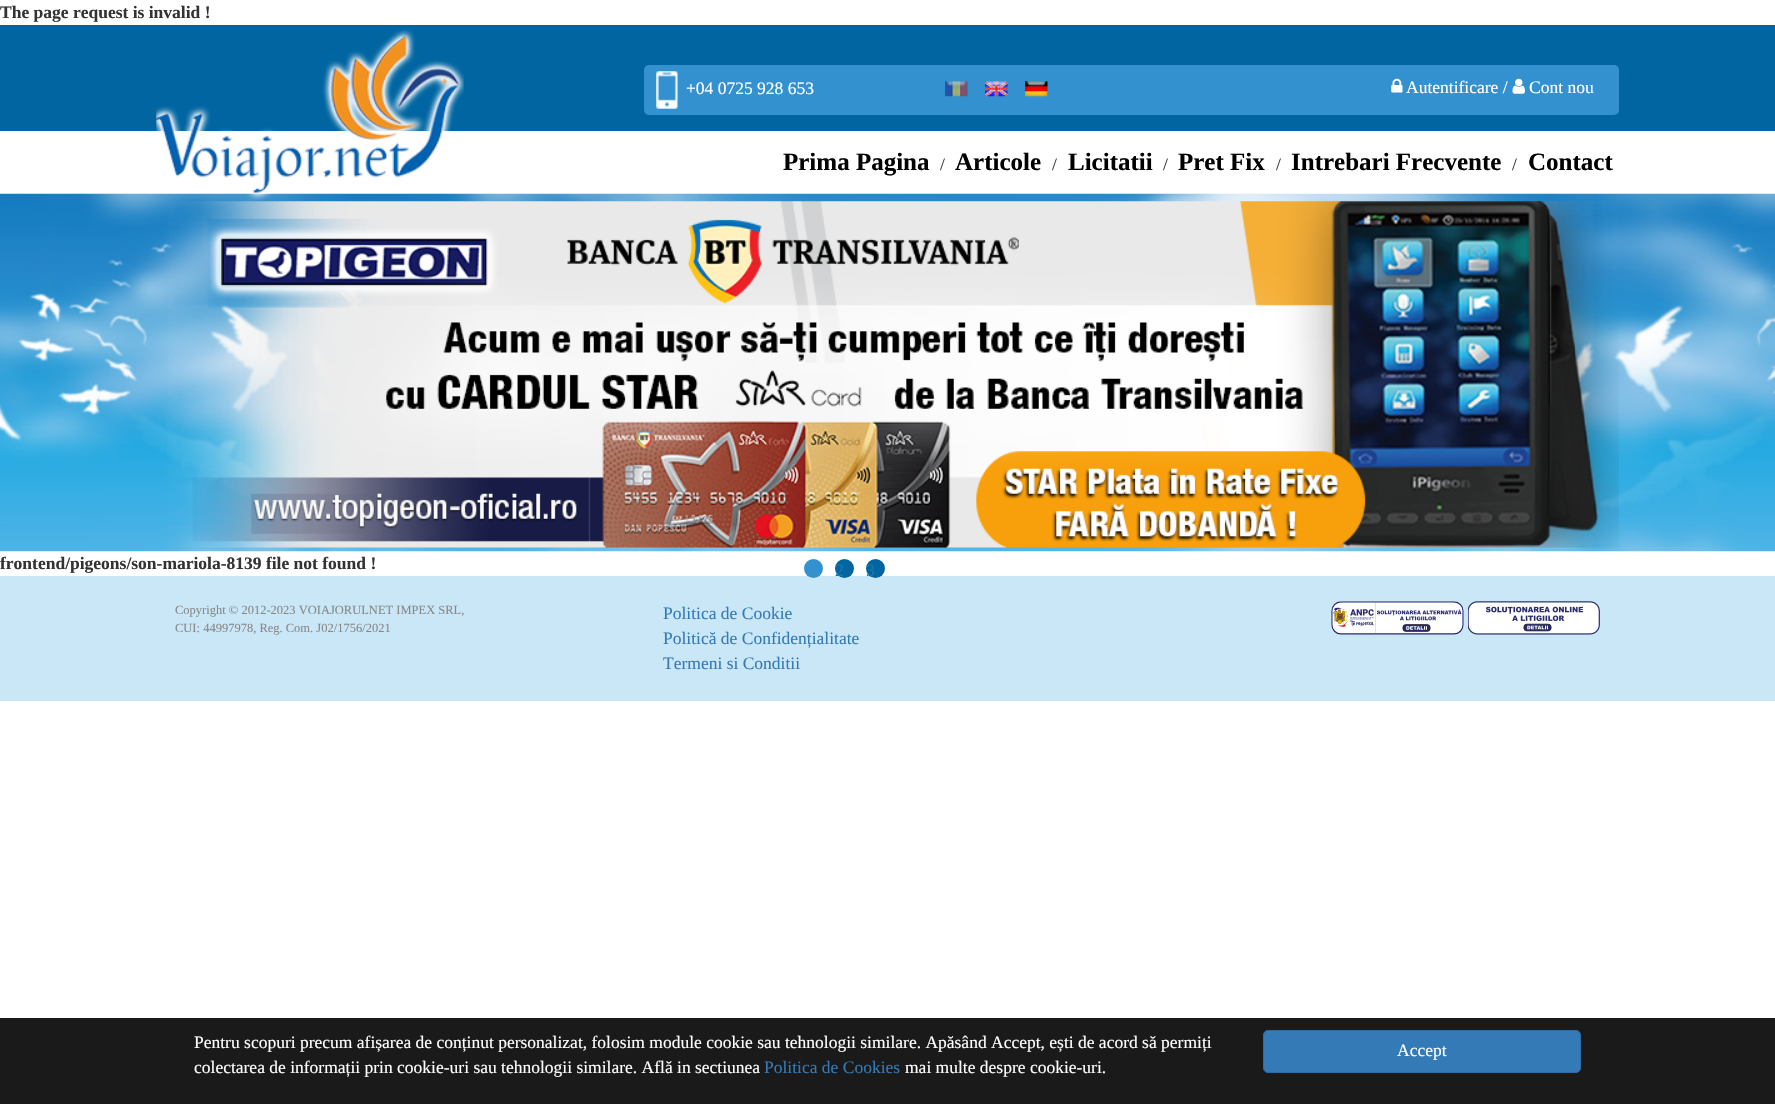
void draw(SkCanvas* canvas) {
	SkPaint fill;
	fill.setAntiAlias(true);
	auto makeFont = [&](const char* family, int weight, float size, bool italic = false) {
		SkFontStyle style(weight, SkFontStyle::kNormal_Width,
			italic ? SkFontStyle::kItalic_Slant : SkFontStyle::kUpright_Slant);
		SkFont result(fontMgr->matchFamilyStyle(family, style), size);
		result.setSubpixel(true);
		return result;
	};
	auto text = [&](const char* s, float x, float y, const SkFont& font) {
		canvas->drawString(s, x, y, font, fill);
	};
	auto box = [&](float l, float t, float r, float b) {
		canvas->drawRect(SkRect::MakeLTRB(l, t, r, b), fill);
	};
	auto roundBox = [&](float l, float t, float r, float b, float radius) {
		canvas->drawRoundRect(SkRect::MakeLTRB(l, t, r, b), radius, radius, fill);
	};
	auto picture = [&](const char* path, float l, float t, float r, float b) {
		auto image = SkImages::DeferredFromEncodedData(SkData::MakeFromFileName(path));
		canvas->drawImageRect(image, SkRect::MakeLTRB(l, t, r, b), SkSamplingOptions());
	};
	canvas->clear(0xFFFFFFFF);
	fill.setColor(0xFF0065A1);
	box(0, 25, 1775, 131);
	fill.setColor(0xFF3391D0);
	roundBox(644, 65, 1619, 115, 5);
	picture("image0.png", 656, 71, 678, 109);
	picture("image1.png", 945, 81, 968, 97);
	picture("image2.png", 985, 81, 1008, 97);
	picture("image3.png", 1025, 81, 1048, 97);
	picture("image4.png", 1391, 78, 1403, 93);
	picture("image5.png", 1512, 78, 1525, 94);
	picture("image7.png", 0, 193, 1775, 552);
	picture("image6.png", 156, 29, 464, 201);
	picture("image8.png", 167, 201, 1619, 548);
	fill.setColor(0xFFCAE7F7);
	box(0, 576, 1775, 701);
	fill.setColor(0xFF3391D0);
	canvas->drawCircle(813.5f, 568.5f, 9.5f, fill);
	fill.setColor(0xFF0065A1);
	canvas->drawCircle(844.5f, 568.5f, 9.5f, fill);
	canvas->drawCircle(875.5f, 568.5f, 9.5f, fill);
	picture("image9.png", 1331, 601, 1464, 635);
	picture("image10.png", 1468, 601, 1600, 635);
	fill.setColor(0xFF1A1A1A);
	box(0, 1018, 1775, 1104);
	fill.setColor(0xFF337AB7);
	canvas->drawRoundRect(SkRect::MakeLTRB(1263.5f, 1030.5f, 1580.5f, 1072.5f), 4.5f, 4.5f, fill);
	fill.setStyle(SkPaint::kStroke_Style);
	fill.setStrokeWidth(1);
	fill.setColor(0xFF2E6DA4);
	canvas->drawRoundRect(SkRect::MakeLTRB(1263.5f, 1030.5f, 1580.5f, 1072.5f), 4.5f, 4.5f, fill);
	auto font1 = makeFont("Liberation Serif", 700, 17.5f);
	fill.setStyle(SkPaint::kFill_Style);
	fill.setColor(0xFF333333);
	text("The page request is invalid !", 0, 18, font1);
	auto font2 = makeFont("Liberation Serif", 400, 17.5f);
	fill.setColor(0xFFFFFFFF);
	text("+04 0725 928 653", 686, 94, font2);
	text("Autentificare /", 1406, 93, font2);
	text("Cont nou", 1529, 93, font2);
	auto font3 = makeFont("Liberation Serif", 700, 25);
	fill.setColor(0xFF000000);
	text("Prima Pagina", 783, 170, font3);
	fill.setColor(0xFF333333);
	text("/", 940, 170, font2);
	fill.setColor(0xFF000000);
	text("Articole", 955, 170, font3);
	fill.setColor(0xFF333333);
	text("/", 1052, 170, font2);
	fill.setColor(0xFF000000);
	text("Licitatii", 1068, 170, font3);
	fill.setColor(0xFF333333);
	text("/", 1163, 170, font2);
	fill.setColor(0xFF000000);
	text("Pret Fix", 1178, 170, font3);
	fill.setColor(0xFF333333);
	text("/", 1276, 170, font2);
	fill.setColor(0xFF000000);
	text("Intrebari Frecvente", 1291, 170, font3);
	fill.setColor(0xFF333333);
	text("/", 1512, 170, font2);
	fill.setColor(0xFF000000);
	text("Contact", 1528, 170, font3);
	fill.setColor(0xFF333333);
	text("frontend/pigeons/son-mariola-8139 file not found !", 0, 569, font1);
	fill.setColor(0xFF1C76AB);
	text("2", 835, 576, font2);
	text("3", 866, 576, font2);
	auto font4 = makeFont("Liberation Serif", 400, 12.5f);
	fill.setColor(0xFF888888);
	text("Copyright © 2012-2023 VOIAJORULNET IMPEX SRL,", 175, 614, font4);
	text("CUI: 44997978, Reg. Com. J02/1756/2021", 175, 632, font4);
	fill.setColor(0xFF337AB7);
	text("Politica de Cookie", 663, 619, font2);
	text("Politică de Confidențialitate", 663, 644, font2);
	text("Termeni si Conditii", 663, 669, font2);
	fill.setColor(0xFFFFFFFF);
	text("Pentru scopuri precum afișarea de conținut personalizat, folosim module cookie sau tehnologii similare. Apăsând Accept, ești de acord să permiți", 194, 1048, font2);
	text("colectarea de informații prin cookie-uri sau tehnologii similare. Află in sectiunea", 194, 1073, font2);
	fill.setColor(0xFF337AB7);
	text("Politica de Cookies", 764, 1073, font2);
	fill.setColor(0xFFFFFFFF);
	text("mai multe despre cookie-uri.", 905, 1073, font2);
	text("Accept", 1397, 1056, font2);
}
